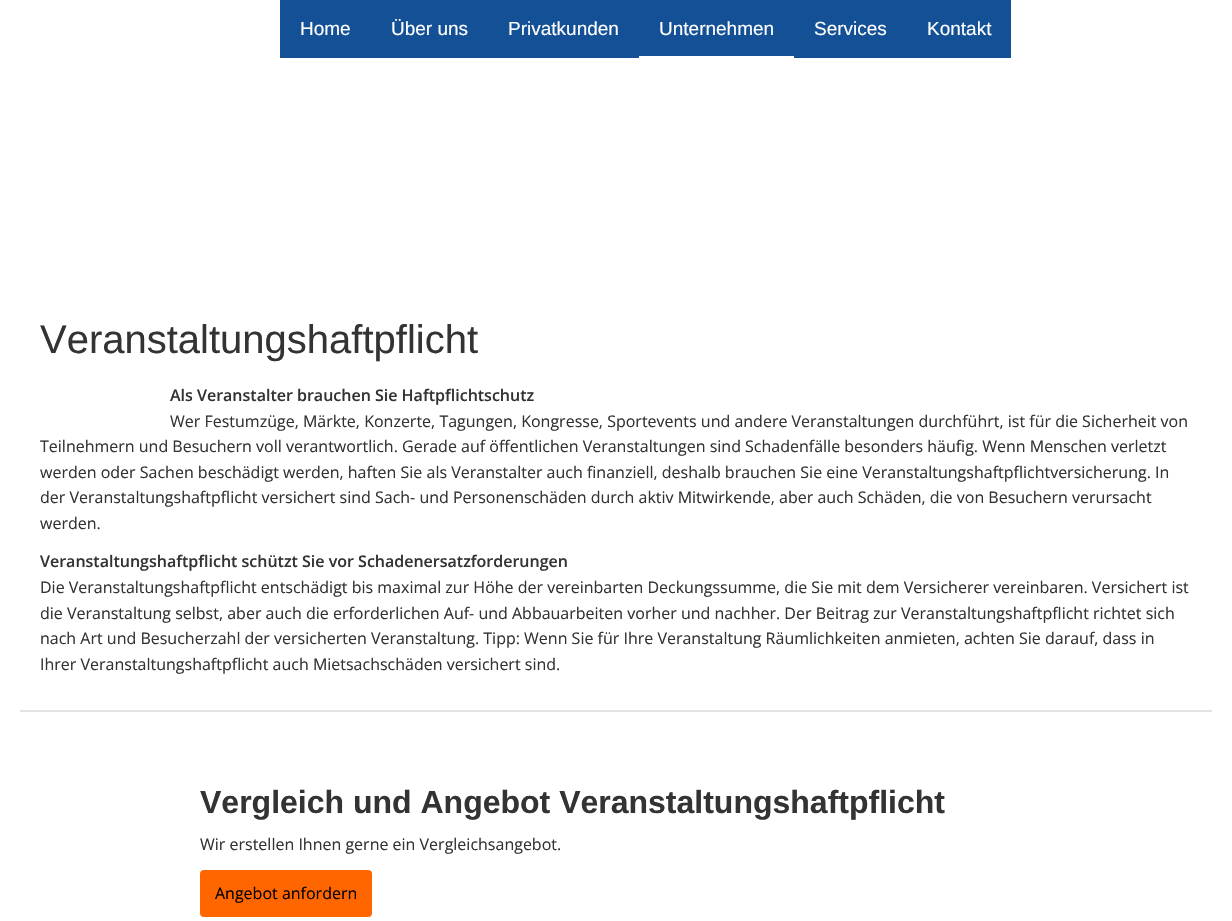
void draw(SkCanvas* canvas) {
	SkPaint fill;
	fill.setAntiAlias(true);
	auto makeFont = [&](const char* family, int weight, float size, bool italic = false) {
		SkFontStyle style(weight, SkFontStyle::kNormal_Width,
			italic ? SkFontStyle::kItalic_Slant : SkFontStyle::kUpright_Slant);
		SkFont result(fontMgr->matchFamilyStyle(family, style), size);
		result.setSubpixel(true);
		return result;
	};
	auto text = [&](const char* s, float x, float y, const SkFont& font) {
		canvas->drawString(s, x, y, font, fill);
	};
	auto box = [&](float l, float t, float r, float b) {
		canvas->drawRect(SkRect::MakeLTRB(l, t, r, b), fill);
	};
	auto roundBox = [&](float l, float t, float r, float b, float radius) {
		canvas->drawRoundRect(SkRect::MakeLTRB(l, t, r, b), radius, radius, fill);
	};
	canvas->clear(0xFFFFFFFF);
	fill.setColor(0xFF135096);
	box(280, 0, 639, 58);
	box(639, 0, 794, 56);
	box(794, 0, 1011, 58);
	fill.setColor(0xFFE3E3E3);
	box(20, 710, 1212, 712);
	fill.setColor(0xFFFF6600);
	roundBox(200, 870, 372, 917, 4);
	auto font1 = makeFont("Liberation Sans", 400, 19);
	fill.setColor(0xFFFFFFFF);
	text("Home", 300, 35, font1);
	text("Über uns", 391, 35, font1);
	text("Privatkunden", 508, 35, font1);
	text("Unternehmen", 659, 35, font1);
	text("Services", 814, 35, font1);
	text("Kontakt", 927, 35, font1);
	auto font2 = makeFont("Liberation Sans", 400, 40);
	fill.setColor(0xFF333333);
	text("Veranstaltungshaftpflicht", 40, 353, font2);
	auto font3 = makeFont("Open Sans", 600, 16);
	text("Als Veranstalter brauchen Sie Haftpflichtschutz", 170, 401, font3);
	auto font4 = makeFont("Open Sans", 400, 16);
	text("Wer Festumzüge, Märkte, Konzerte, Tagungen, Kongresse, Sportevents und andere Veranstaltungen durchführt, ist für die Sicherheit von", 170, 427, font4);
	text("Teilnehmern und Besuchern voll verantwortlich. Gerade auf öffentlichen Veranstaltungen sind Schadenfälle besonders häufig. Wenn Menschen verletzt", 40, 452, font4);
	text("werden oder Sachen beschädigt werden, haften Sie als Veranstalter auch finanziell, deshalb brauchen Sie eine Veranstaltungshaftpflichtversicherung. In", 40, 478, font4);
	text("der Veranstaltungshaftpflicht versichert sind Sach- und Personenschäden durch aktiv Mitwirkende, aber auch Schäden, die von Besuchern verursacht", 40, 503, font4);
	text("werden.", 40, 529, font4);
	text("Veranstaltungshaftpflicht schützt Sie vor Schadenersatzforderungen", 40, 567, font3);
	text("Die Veranstaltungshaftpflicht entschädigt bis maximal zur Höhe der vereinbarten Deckungssumme, die Sie mit dem Versicherer vereinbaren. Versichert ist", 40, 593, font4);
	text("die Veranstaltung selbst, aber auch die erforderlichen Auf- und Abbauarbeiten vorher und nachher. Der Beitrag zur Veranstaltungshaftpflicht richtet sich", 40, 619, font4);
	text("nach Art und Besucherzahl der versicherten Veranstaltung. Tipp: Wenn Sie für Ihre Veranstaltung Räumlichkeiten anmieten, achten Sie darauf, dass in", 40, 644, font4);
	text("Ihrer Veranstaltungshaftpflicht auch Mietsachschäden versichert sind.", 40, 670, font4);
	auto font5 = makeFont("Liberation Sans", 700, 32);
	text("Vergleich und Angebot Veranstaltungshaftpflicht", 200, 813, font5);
	text("Wir erstellen Ihnen gerne ein Vergleichsangebot.", 200, 850, font4);
	fill.setColor(0xFF000000);
	text("Angebot anfordern", 215, 899, font4);
}
